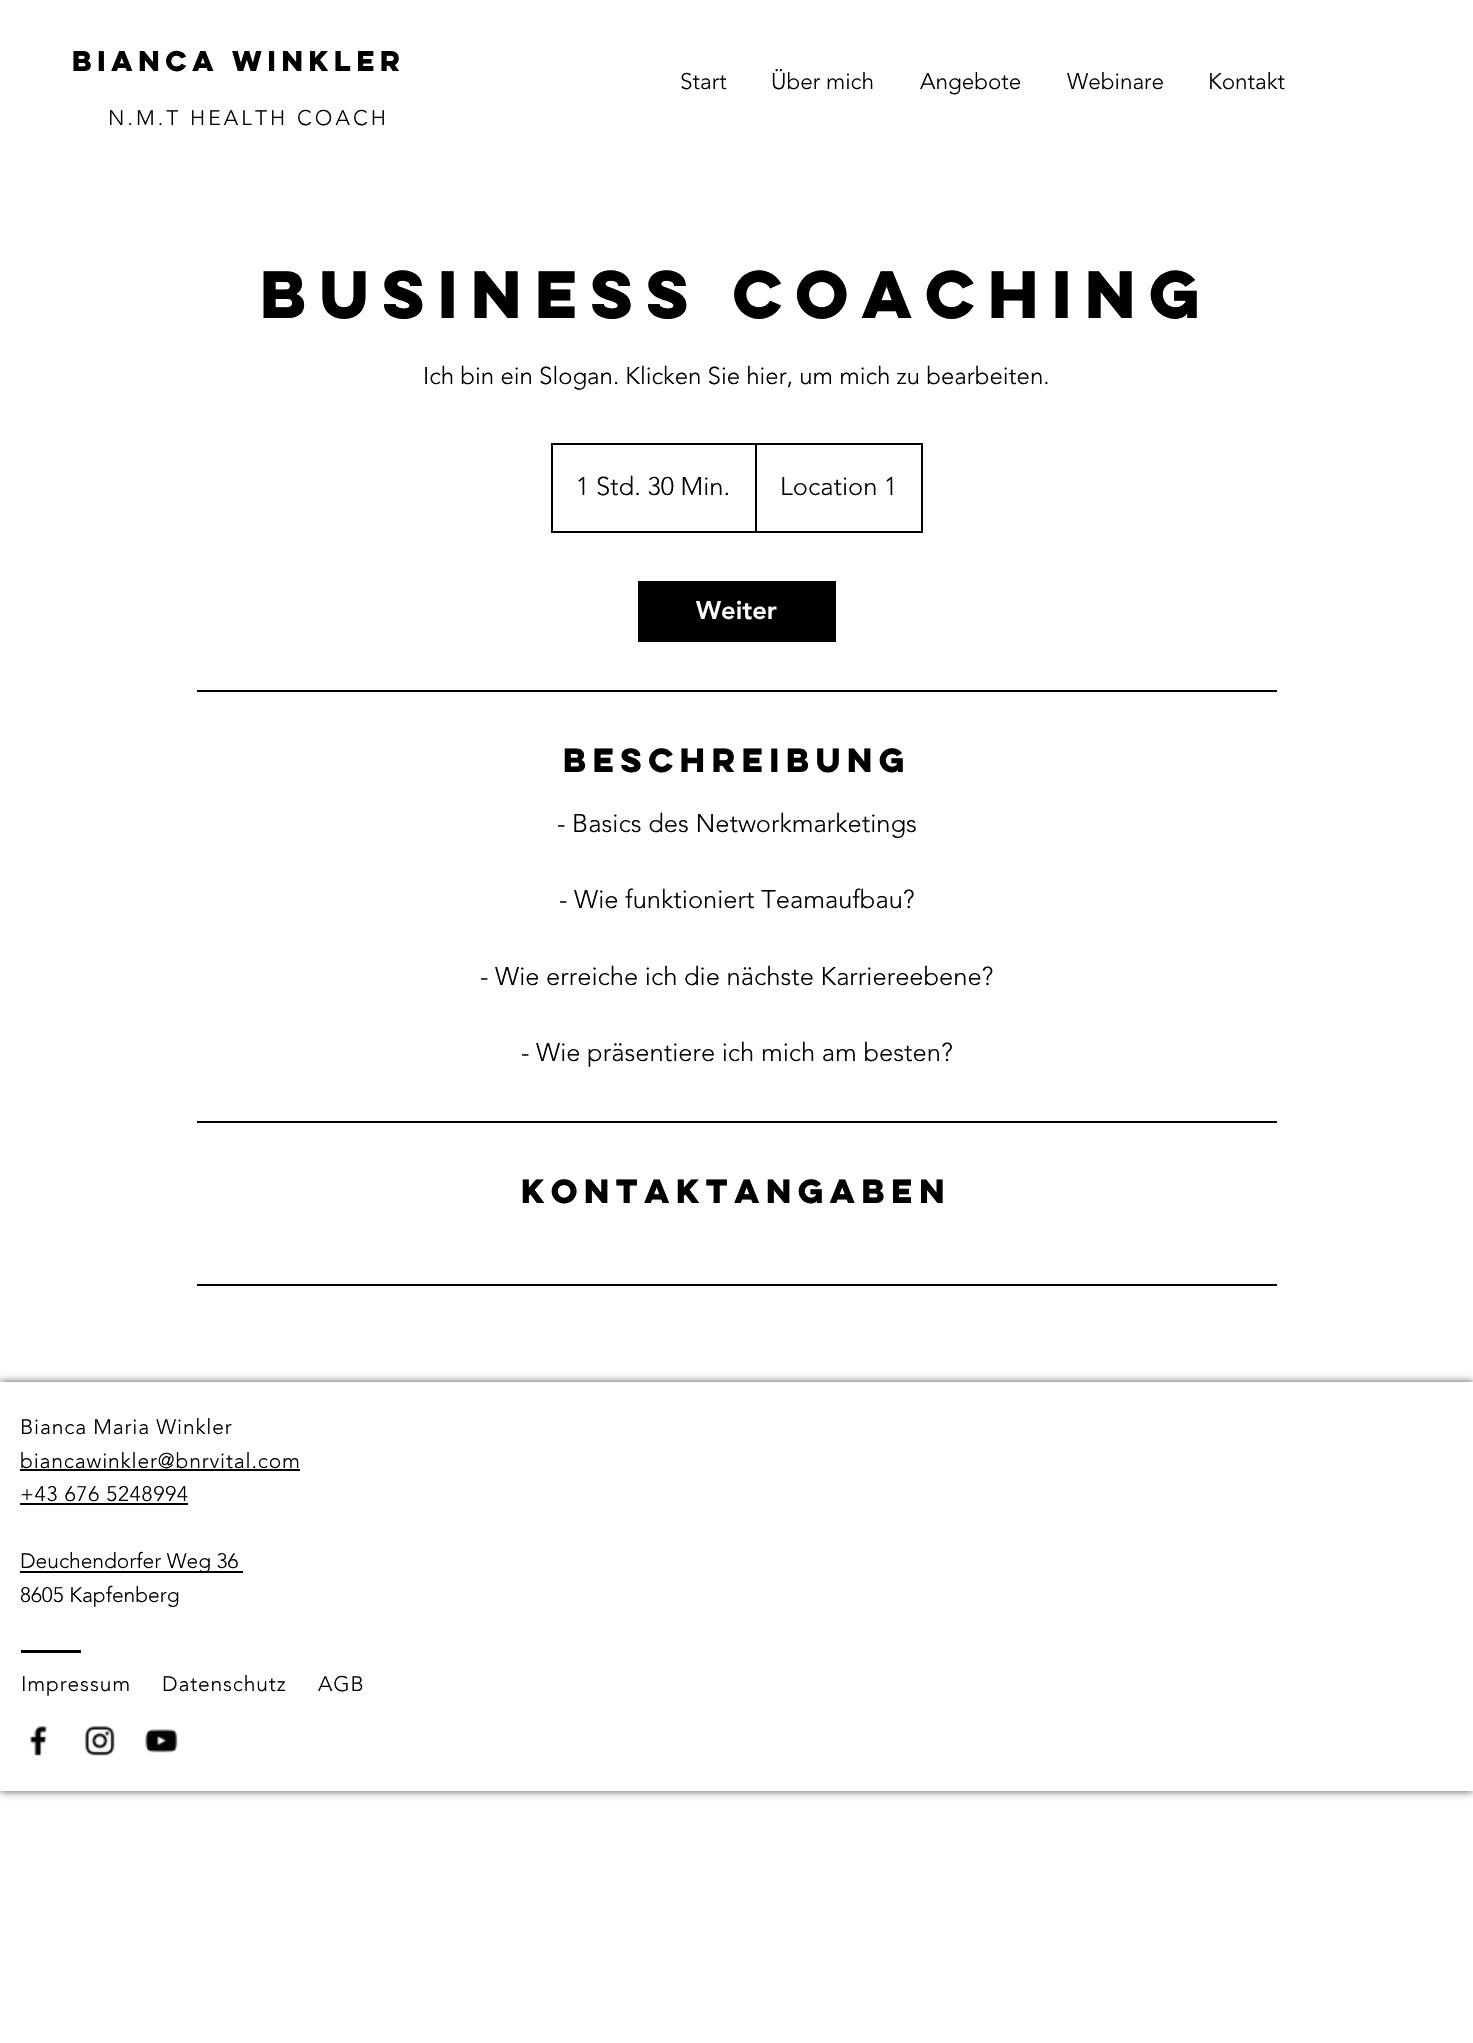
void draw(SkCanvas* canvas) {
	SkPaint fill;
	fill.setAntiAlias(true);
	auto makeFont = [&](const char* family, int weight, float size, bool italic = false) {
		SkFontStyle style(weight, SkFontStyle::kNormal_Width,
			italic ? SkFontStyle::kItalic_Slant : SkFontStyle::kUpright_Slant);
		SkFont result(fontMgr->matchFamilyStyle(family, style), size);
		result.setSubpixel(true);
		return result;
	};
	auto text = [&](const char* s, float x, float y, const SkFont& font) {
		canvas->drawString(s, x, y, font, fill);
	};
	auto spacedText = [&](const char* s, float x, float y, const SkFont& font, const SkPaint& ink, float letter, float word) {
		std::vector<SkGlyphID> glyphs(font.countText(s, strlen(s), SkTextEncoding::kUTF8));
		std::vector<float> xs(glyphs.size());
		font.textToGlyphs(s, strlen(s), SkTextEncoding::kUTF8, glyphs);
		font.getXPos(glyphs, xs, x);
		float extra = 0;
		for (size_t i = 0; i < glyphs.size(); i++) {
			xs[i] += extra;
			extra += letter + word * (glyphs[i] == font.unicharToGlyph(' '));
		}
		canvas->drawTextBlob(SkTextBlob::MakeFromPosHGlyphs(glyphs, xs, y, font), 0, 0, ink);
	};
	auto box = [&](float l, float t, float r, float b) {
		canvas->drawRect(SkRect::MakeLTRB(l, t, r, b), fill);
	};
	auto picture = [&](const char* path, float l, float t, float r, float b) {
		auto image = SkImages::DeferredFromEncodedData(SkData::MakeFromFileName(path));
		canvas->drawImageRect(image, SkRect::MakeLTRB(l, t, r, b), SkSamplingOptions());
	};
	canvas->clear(0xFFFFFFFF);
	fill.setStyle(SkPaint::kStroke_Style);
	fill.setStrokeWidth(2);
	fill.setColor(0xFF000000);
	canvas->drawRect(SkRect::MakeLTRB(552, 444, 922, 532), fill);
	fill.setStyle(SkPaint::kFill_Style);
	box(755, 444, 757, 531);
	box(638, 581, 836, 642);
	box(197, 690, 1277, 692);
	box(197, 1121, 1277, 1123);
	box(197, 1284, 1277, 1286);
	canvas->save();
	canvas->clipPath(SkPathBuilder(SkPathFillType::kEvenOdd).moveTo(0, 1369).lineTo(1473, 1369).lineTo(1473, 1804).lineTo(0, 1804).close().moveTo(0, 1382).lineTo(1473, 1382).lineTo(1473, 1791).lineTo(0, 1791).close().detach(), true);
	fill.setColor(0xB3000000);
	fill.setMaskFilter(SkMaskFilter::MakeBlur(kNormal_SkBlurStyle, 4));
	canvas->drawRect(SkRect::MakeLTRB(0, 1382, 1473, 1791), fill);
	fill.setMaskFilter(nullptr);
	canvas->restore();
	fill.setColor(0xFF000000);
	box(20, 1469, 300, 1471);
	box(20, 1503, 188, 1505);
	box(20, 1571, 243, 1573);
	box(21, 1650, 81, 1653);
	picture("image0.png", 29, 1726, 47, 1756);
	picture("image1.png", 85, 1726, 115, 1756);
	picture("image2.png", 145, 1729, 178, 1753);
	auto font1 = makeFont("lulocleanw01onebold", 700, 25.5f);
	text("BiancA winkler", 72, 71, font1);
	auto font2 = makeFont("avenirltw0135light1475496", 300, 22.5f);
	text("Start", 680, 89, font2);
	text("Über mich", 771, 89, font2);
	text("Angebote", 920, 89, font2);
	text("Webinare", 1067, 89, font2);
	text("Kontakt", 1208, 89, font2);
	auto font3 = makeFont("avenirltw0135light1475496", 300, 21);
	spacedText("N.M.T HEALTH COACH", 108, 125, font3, fill, 3.1f, 0);
	auto font4 = makeFont("lulocleanw01onebold", 700, 60);
	text("Business Coaching", 260, 318, font4);
	auto font5 = makeFont("avenirltw0135light1475496", 300, 24);
	text("Ich bin ein Slogan. Klicken Sie hier, um mich zu bearbeiten.", 423, 384, font5);
	auto font6 = makeFont("avenirltw0135light1475496", 300, 25.5f);
	text("1 Std. 30 Min.", 576, 495, font6);
	text("Location 1", 780, 495, font6);
	auto font7 = makeFont("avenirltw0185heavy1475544", 900, 25.5f);
	fill.setColor(0xFFFFFFFF);
	text("Weiter", 696, 619, font7);
	auto font8 = makeFont("lulocleanw01onebold", 700, 30);
	fill.setColor(0xFF000000);
	text("Beschreibung", 563, 772, font8);
	text("- Basics des Networkmarketings", 557, 832, font6);
	text("- Wie funktioniert Teamaufbau?", 559, 908, font6);
	text("- Wie erreiche ich die nächste Karriereebene?", 480, 985, font6);
	text("- Wie präsentiere ich mich am besten?", 521, 1061, font6);
	text("Kontaktangaben", 521, 1203, font8);
	spacedText("Bianca Maria Winkler", 20, 1434, font3, fill, 0.85f, 0);
	spacedText("biancawinkler@bnrvital.com", 20, 1468, font3, fill, 0.85f, 0);
	spacedText("+43 676 5248994", 20, 1501, font3, fill, 0.85f, 0);
	text("Deuchendorfer Weg 36", 20, 1568, font3);
	text("8605 Kapfenberg", 20, 1602, font3);
	spacedText("Impressum", 21, 1691, font3, fill, 0.85f, 0);
	spacedText("Datenschutz", 162, 1691, font3, fill, 0.85f, 0);
	spacedText("AGB", 318, 1691, font3, fill, 0.85f, 0);
}
